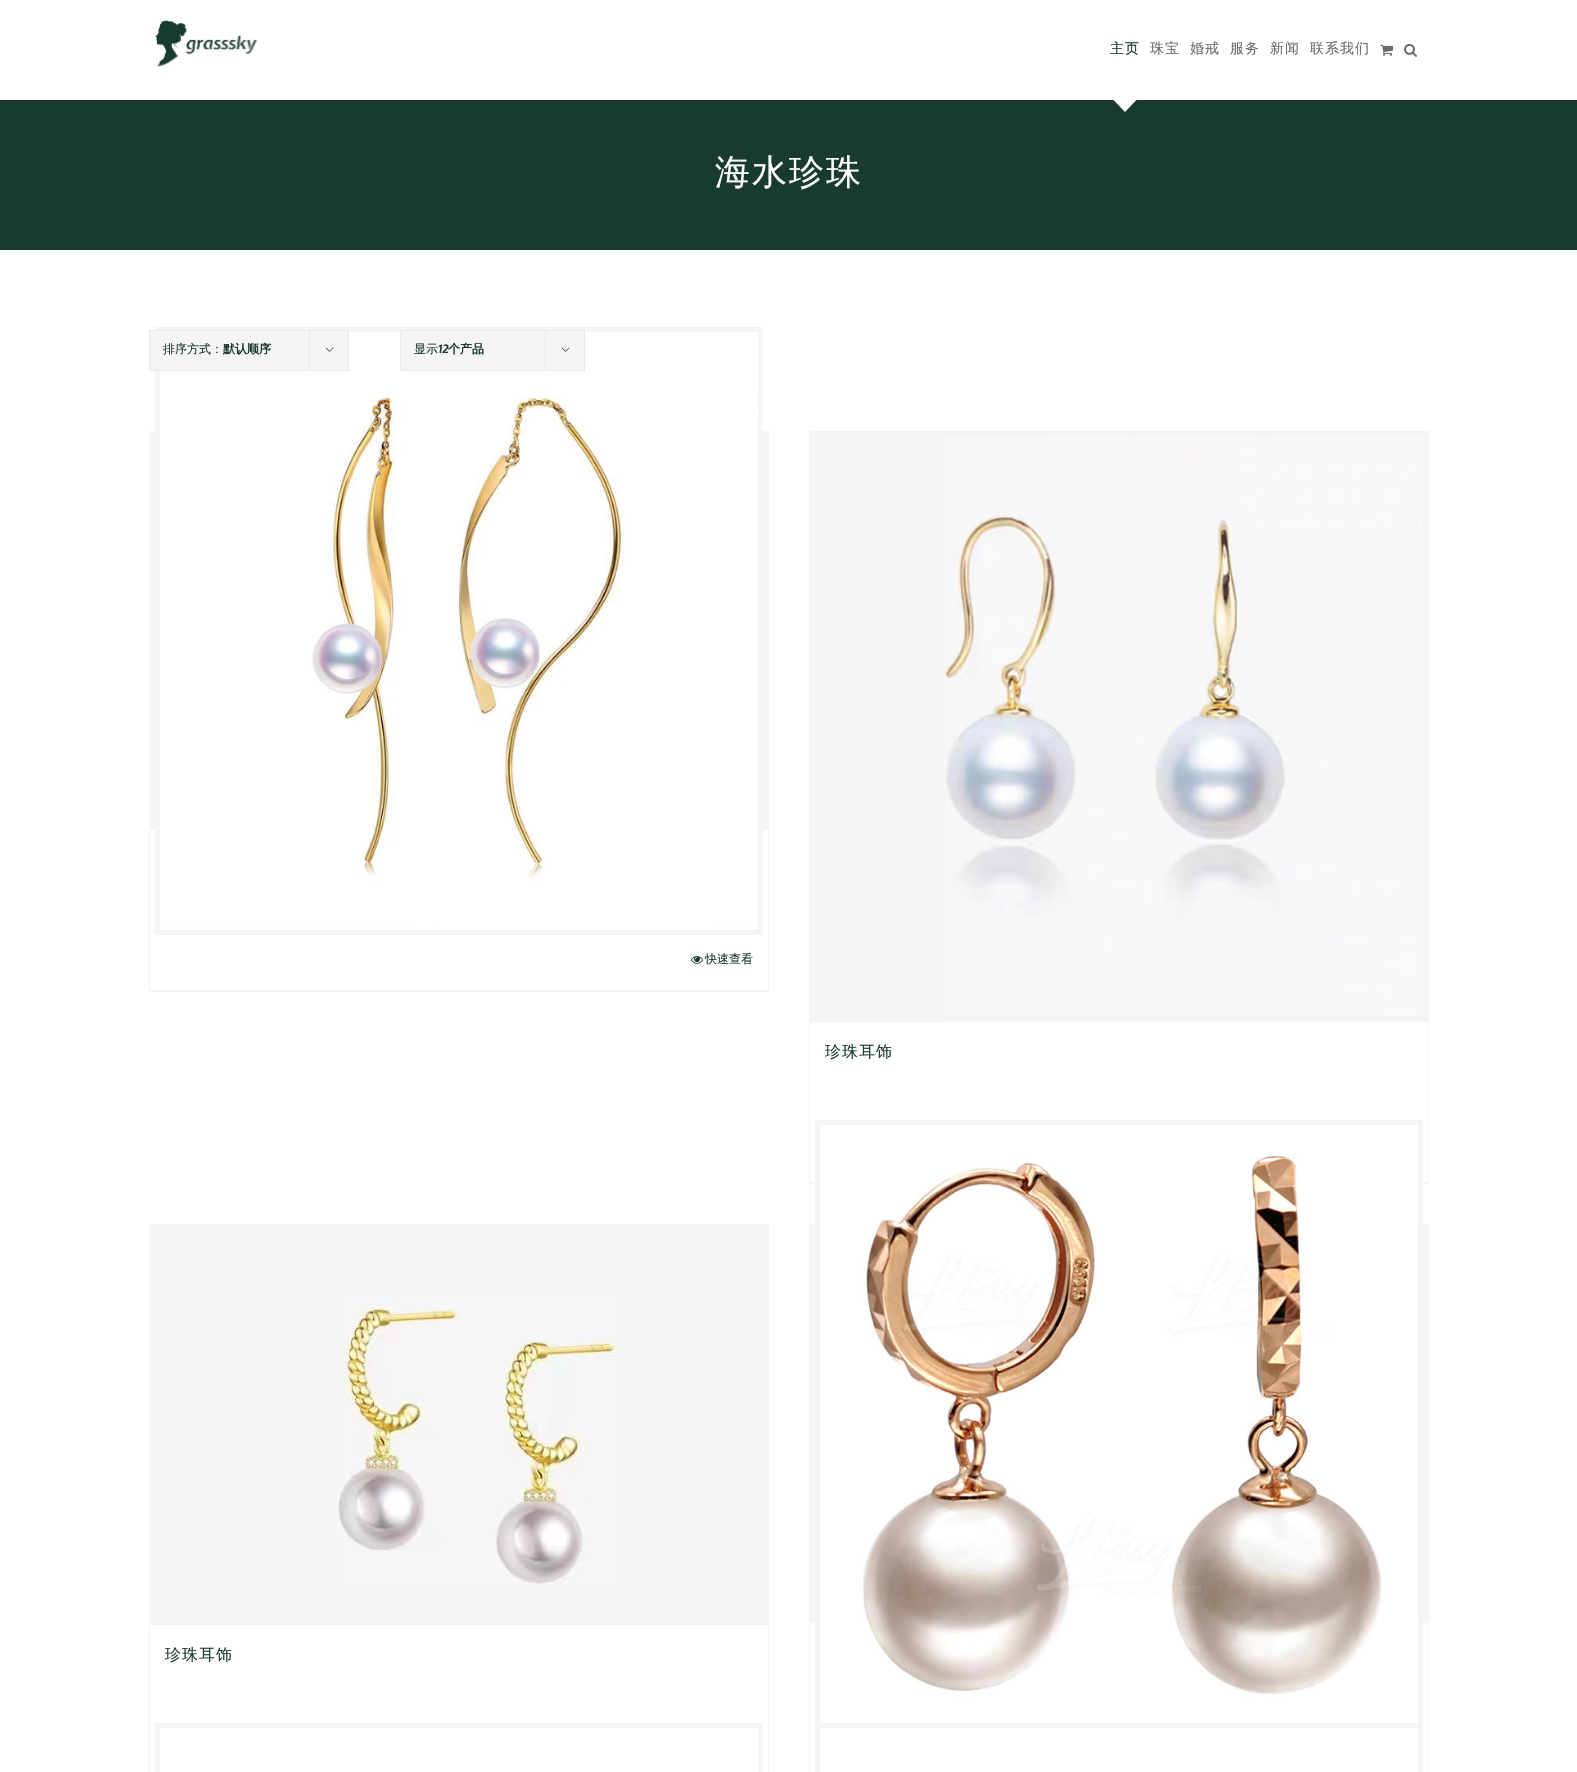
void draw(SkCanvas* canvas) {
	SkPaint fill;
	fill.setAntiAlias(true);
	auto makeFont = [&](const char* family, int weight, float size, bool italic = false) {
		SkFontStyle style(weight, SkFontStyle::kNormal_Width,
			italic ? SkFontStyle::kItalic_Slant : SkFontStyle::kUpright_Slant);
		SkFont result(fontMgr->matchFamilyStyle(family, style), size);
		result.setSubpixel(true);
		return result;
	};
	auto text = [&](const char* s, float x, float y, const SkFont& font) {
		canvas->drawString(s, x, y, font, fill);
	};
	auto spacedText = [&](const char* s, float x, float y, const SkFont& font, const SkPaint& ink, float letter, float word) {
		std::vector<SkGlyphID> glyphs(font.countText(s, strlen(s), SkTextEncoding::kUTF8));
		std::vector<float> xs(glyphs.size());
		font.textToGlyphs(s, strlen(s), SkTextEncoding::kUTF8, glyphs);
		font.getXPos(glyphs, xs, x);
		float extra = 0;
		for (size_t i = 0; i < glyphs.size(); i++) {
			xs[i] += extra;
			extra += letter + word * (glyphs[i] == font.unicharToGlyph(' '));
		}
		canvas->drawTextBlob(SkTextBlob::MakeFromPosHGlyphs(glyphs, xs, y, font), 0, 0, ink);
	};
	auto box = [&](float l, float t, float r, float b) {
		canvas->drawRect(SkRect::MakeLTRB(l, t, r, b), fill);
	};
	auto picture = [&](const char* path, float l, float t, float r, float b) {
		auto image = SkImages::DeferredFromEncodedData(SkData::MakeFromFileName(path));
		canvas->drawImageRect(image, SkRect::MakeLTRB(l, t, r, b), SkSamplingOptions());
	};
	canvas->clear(0xFFFFFFFF);
	picture("image0.png", 155, 20, 258, 67);
	fill.setColor(0xFF193A31);
	box(0, 100, 1577, 250);
	fill.setColor(0xFFFFFFFF);
	canvas->drawPath(SkPathBuilder().moveTo(1113.5f, 100).lineTo(1125, 112).lineTo(1136.5f, 100).close().detach(), fill);
	picture("image1.png", 1380, 44, 1393, 56);
	picture("image2.png", 1404, 43, 1417, 57);
	fill.setColor(0xFFF5F5F5);
	box(149, 431, 769, 432);
	box(150, 432, 768, 830);
	box(155, 327, 763, 935);
	picture("image4.png", 160, 332, 758, 930);
	canvas->drawRect(SkRect::MakeLTRB(149.5f, 330.5f, 348.5f, 370.5f), fill);
	fill.setStyle(SkPaint::kStroke_Style);
	fill.setStrokeWidth(1);
	fill.setColor(0xFFEAE8E8);
	canvas->drawRect(SkRect::MakeLTRB(149.5f, 330.5f, 348.5f, 370.5f), fill);
	fill.setStyle(SkPaint::kFill_Style);
	box(309, 330, 310, 369);
	picture("image3.png", 325, 347, 334, 352);
	fill.setColor(0xFFF5F5F5);
	box(401, 332, 584, 370);
	fill.setStyle(SkPaint::kStroke_Style);
	fill.setColor(0xFFEAE8E8);
	canvas->drawRect(SkRect::MakeLTRB(400.5f, 330.5f, 584.5f, 370.5f), fill);
	fill.setStyle(SkPaint::kFill_Style);
	box(545, 330, 546, 369);
	picture("image3.png", 561, 347, 570, 352);
	fill.setColor(0xFFF5F5F5);
	box(768, 431, 769, 992);
	box(149, 990, 769, 992);
	box(149, 431, 150, 992);
	picture("image5.png", 691, 956, 703, 964);
	box(809, 431, 1429, 432);
	box(1428, 431, 1429, 1184);
	box(809, 1182, 1429, 1184);
	box(809, 431, 810, 1184);
	box(810, 432, 1428, 1022);
	picture("image6.png", 943, 437, 1423, 1017);
	box(149, 1224, 769, 1225);
	box(768, 1224, 769, 1772);
	box(149, 1224, 150, 1772);
	box(150, 1225, 768, 1625);
	picture("image7.png", 337, 1294, 618, 1584);
	box(809, 1224, 1429, 1225);
	box(1428, 1224, 1429, 1772);
	box(809, 1224, 810, 1772);
	box(810, 1225, 1428, 1623);
	box(815, 1120, 1423, 1772);
	picture("image8.png", 820, 1125, 1418, 1723);
	box(155, 1723, 763, 1772);
	fill.setColor(0xFFFFFFFF);
	box(160, 1728, 758, 1772);
	box(820, 1728, 1418, 1772);
	auto font1 = makeFont("WenQuanYi Zen Hei", 500, 14);
	fill.setColor(0xFF193A31);
	spacedText("主页", 1110, 53, font1, fill, 1, 0);
	fill.setColor(0xFF6B6B6B);
	spacedText("珠宝", 1150, 53, font1, fill, 1, 0);
	spacedText("婚戒", 1190, 53, font1, fill, 1, 0);
	spacedText("服务", 1230, 53, font1, fill, 1, 0);
	spacedText("新闻", 1270, 53, font1, fill, 1, 0);
	spacedText("联系我们", 1310, 53, font1, fill, 1, 0);
	auto font2 = makeFont("WenQuanYi Zen Hei", 500, 35);
	fill.setColor(0xFFFFFFFF);
	spacedText("海水珍珠", 715, 184, font2, fill, 2, 0);
	canvas->save();
	canvas->clipRect(SkRect::MakeLTRB(163, 331, 296, 370));
	auto font3 = makeFont("WenQuanYi Zen Hei", 500, 12);
	fill.setColor(0xFF193A31);
	text("排序方式：", 163, 353, font3);
	canvas->restore();
	auto font4 = makeFont("WenQuanYi Zen Hei", 700, 12);
	text("默认顺序", 223, 353, font4);
	text("显示", 414, 353, font3);
	auto font5 = makeFont("Expletus Sans", 700, 12, true);
	text("12", 438, 353, font5);
	text("个产品", 448, 353, font4);
	text("快速查看", 705, 963, font3);
	auto font6 = makeFont("WenQuanYi Zen Hei", 500, 16);
	spacedText("珍珠耳饰", 825, 1057, font6, fill, 1, 0);
	spacedText("珍珠耳饰", 165, 1660, font6, fill, 1, 0);
}
